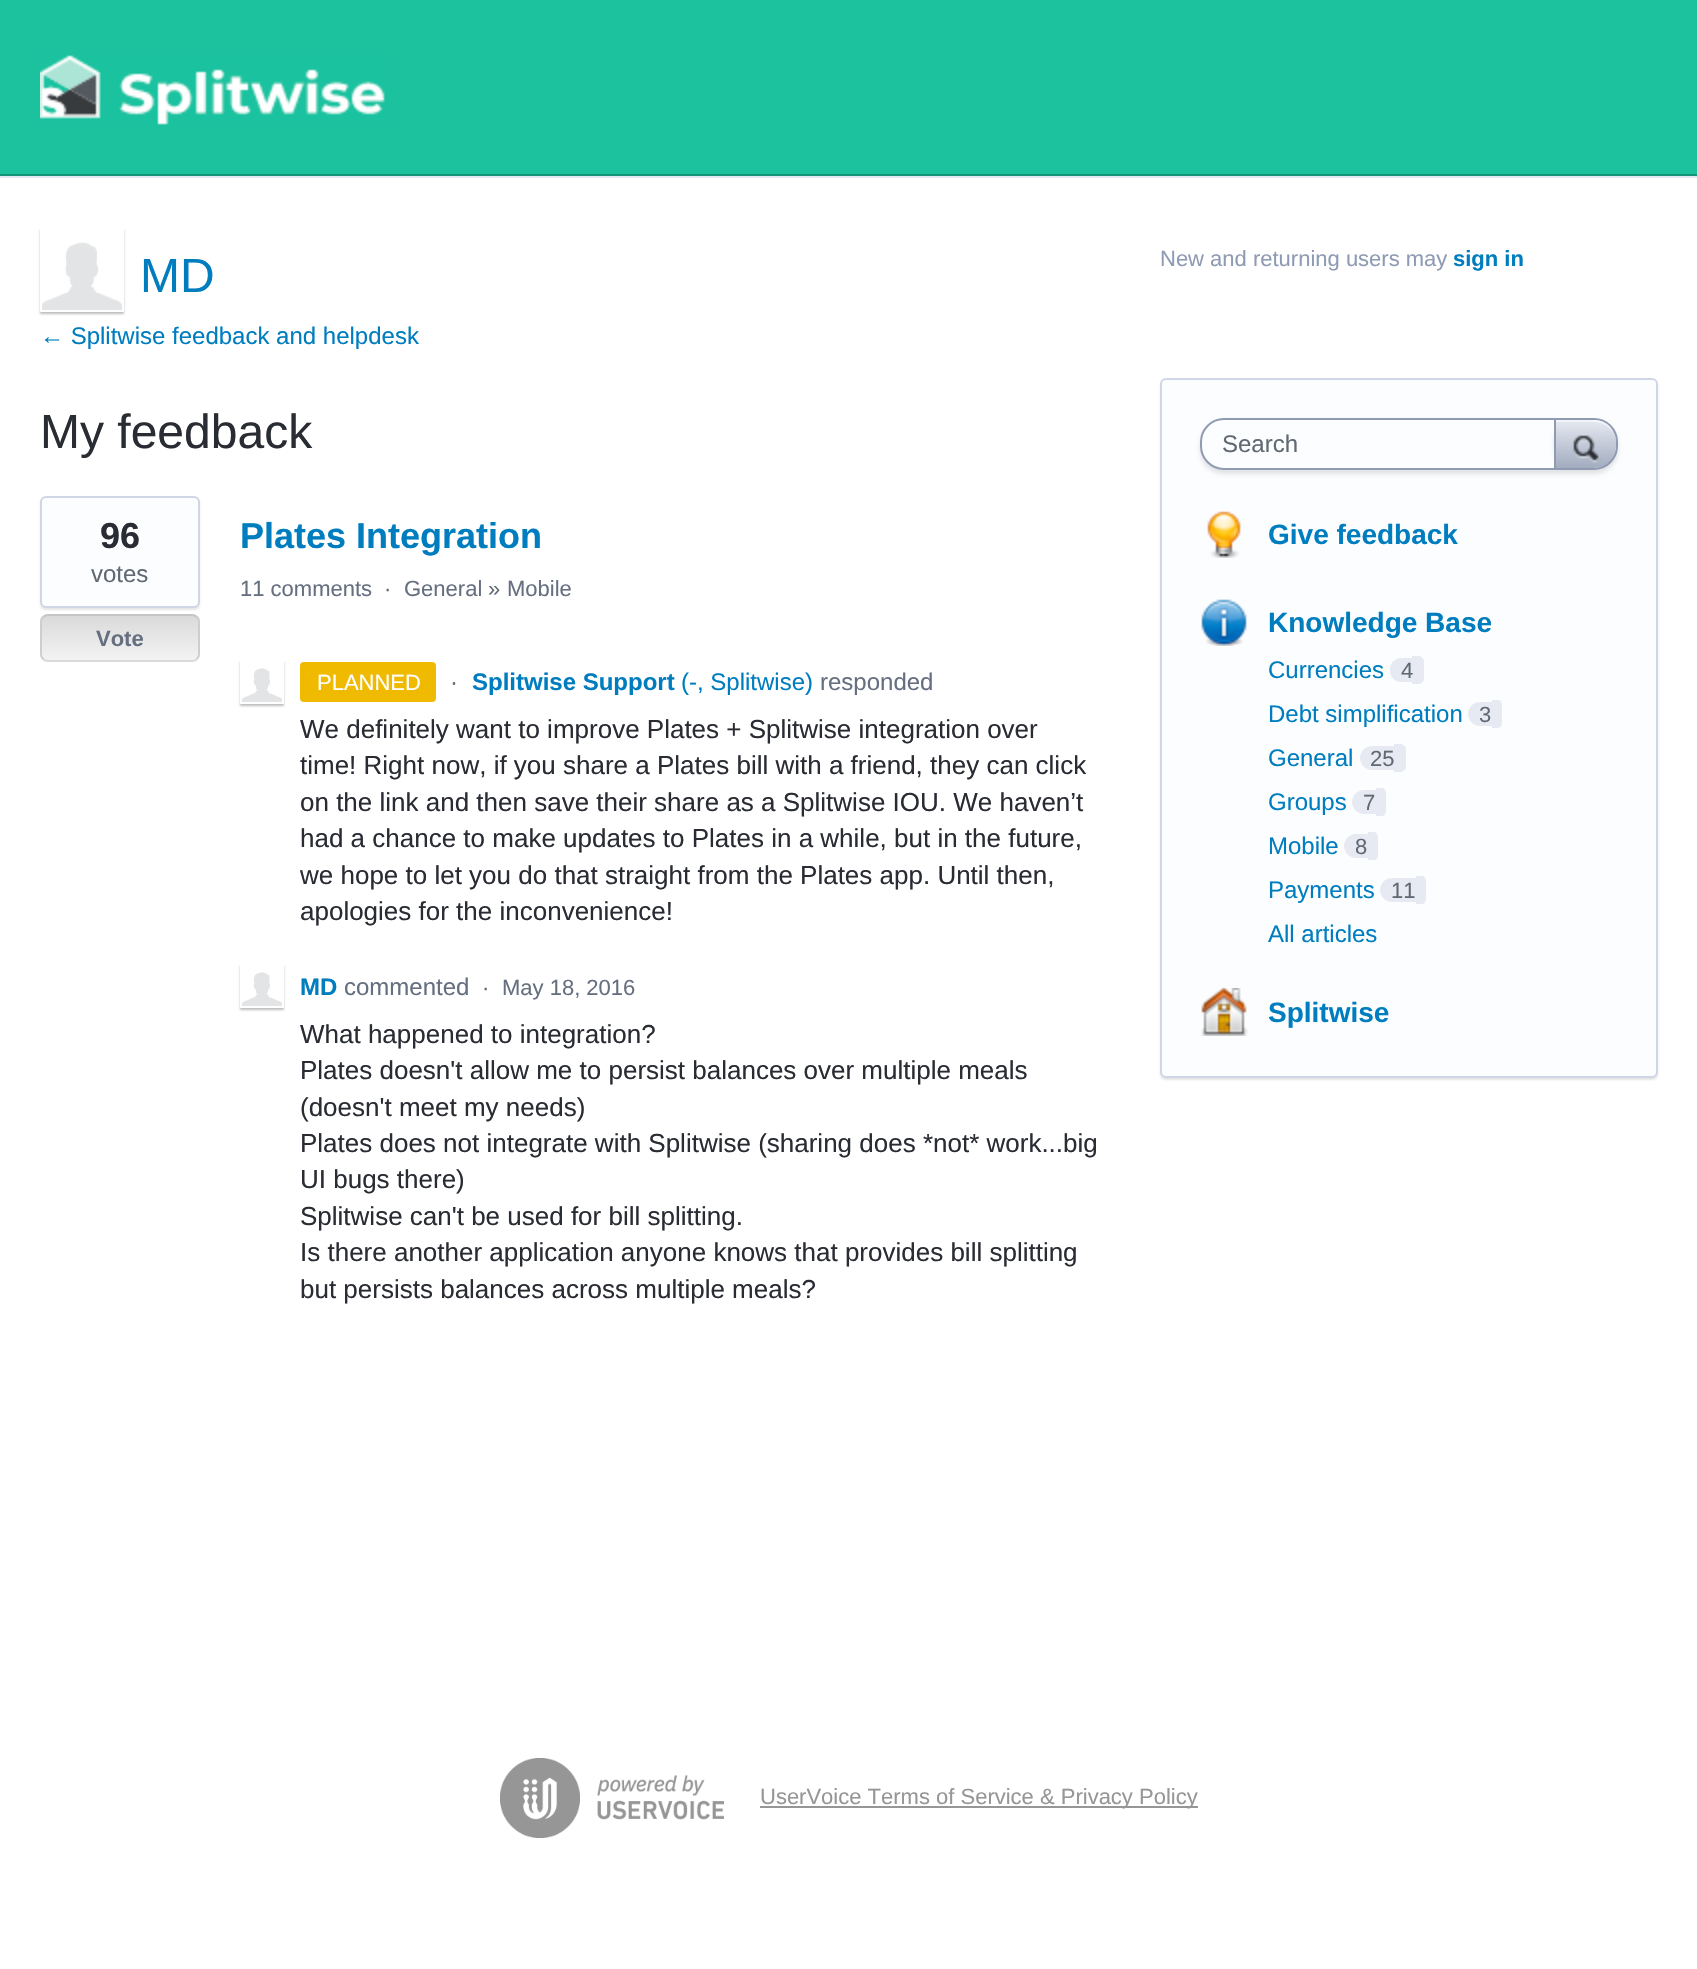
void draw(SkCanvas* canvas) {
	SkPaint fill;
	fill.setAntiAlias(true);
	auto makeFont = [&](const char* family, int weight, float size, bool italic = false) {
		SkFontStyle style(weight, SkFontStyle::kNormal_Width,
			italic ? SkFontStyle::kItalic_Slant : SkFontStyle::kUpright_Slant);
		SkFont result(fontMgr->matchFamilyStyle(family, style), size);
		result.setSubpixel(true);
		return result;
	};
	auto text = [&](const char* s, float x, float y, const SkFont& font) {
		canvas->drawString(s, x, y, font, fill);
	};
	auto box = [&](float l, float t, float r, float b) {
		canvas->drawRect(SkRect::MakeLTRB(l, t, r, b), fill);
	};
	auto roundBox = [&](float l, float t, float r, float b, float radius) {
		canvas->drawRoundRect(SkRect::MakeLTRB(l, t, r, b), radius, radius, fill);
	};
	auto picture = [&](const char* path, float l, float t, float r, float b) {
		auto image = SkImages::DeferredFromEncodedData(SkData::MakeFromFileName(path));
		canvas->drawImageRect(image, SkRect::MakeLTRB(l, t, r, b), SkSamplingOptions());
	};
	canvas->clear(0xFFFFFFFF);
	fill.setColor(0xFF1CC29E);
	box(0, 0, 1697, 174);
	fill.setColor(0xFF159277);
	box(0, 174, 1697, 176);
	picture("image0.png", 40, 55, 385, 125);
	fill.setColor(0xFFE3E8F2);
	box(0, 176, 1697, 178);
	canvas->save();
	canvas->clipPath(SkPathBuilder(SkPathFillType::kEvenOdd).moveTo(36, 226).lineTo(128, 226).lineTo(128, 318).lineTo(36, 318).close().moveTo(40, 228).lineTo(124, 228).lineTo(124, 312).lineTo(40, 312).close().detach(), true);
	fill.setColor(0x40000000);
	fill.setMaskFilter(SkMaskFilter::MakeBlur(kNormal_SkBlurStyle, 1));
	canvas->drawRect(SkRect::MakeLTRB(40, 230, 124, 314), fill);
	fill.setMaskFilter(nullptr);
	canvas->restore();
	picture("image1.png", 42, 242, 122, 310);
	fill.setColor(0x1A000000);
	fill.setMaskFilter(SkMaskFilter::MakeBlur(kNormal_SkBlurStyle, 1));
	canvas->drawRoundRect(SkRect::MakeLTRB(40, 498, 200, 610), 6, 6, fill);
	fill.setMaskFilter(nullptr);
	fill.setColor(0xFFFCFDFF);
	canvas->drawRoundRect(SkRect::MakeLTRB(41, 497, 199, 607), 5, 5, fill);
	fill.setStyle(SkPaint::kStroke_Style);
	fill.setStrokeWidth(2);
	fill.setColor(0xFFCFD7E6);
	canvas->drawRoundRect(SkRect::MakeLTRB(41, 497, 199, 607), 5, 5, fill);
	canvas->save();
	canvas->clipPath(SkPathBuilder().moveTo(48, 614).lineTo(192, 614).cubicTo(196.5f, 614, 200, 617.5f, 200, 622).lineTo(200, 654).cubicTo(200, 658.5f, 196.5f, 662, 192, 662).lineTo(48, 662).cubicTo(43.5f, 662, 40, 658.5f, 40, 654).lineTo(40, 622).cubicTo(40, 617.5f, 43.5f, 614, 48, 614).close().detach(), true);
	fill.setStyle(SkPaint::kFill_Style);
	{
		const SkColor colors[] = {0xFFDADADA, 0xFFF3F3F3};
		const float stops[] = {0, 1};
		const SkPoint ends[] = {{42, 616}, {42, 660}};
		fill.setShader(SkGradientShader::MakeLinear(ends, colors, stops, 2, SkTileMode::kClamp));
		fill.setAlpha(255);
	}
	box(40, 616, 200, 660);
	canvas->restore();
	fill.setStyle(SkPaint::kStroke_Style);
	fill.setShader(nullptr);
	fill.setColor(0xFFC5C5C5);
	canvas->drawPath(SkPathBuilder().moveTo(43, 617).cubicTo(44.5f, 615.5f, 46, 615, 48, 615).lineTo(192, 615).cubicTo(194, 615, 195.5f, 615.5f, 197, 617).detach(), fill);
	fill.setColor(0xFFCECECE);
	canvas->drawPath(SkPathBuilder().moveTo(197, 617).cubicTo(198.5f, 618.5f, 199, 620, 199, 622).lineTo(199, 654).cubicTo(199, 656, 198.5f, 657.5f, 197, 659).detach(), fill);
	fill.setColor(0xFFD9D9D9);
	canvas->drawPath(SkPathBuilder().moveTo(197, 659).cubicTo(195.5f, 660.5f, 194, 661, 192, 661).lineTo(48, 661).cubicTo(46, 661, 44.5f, 660.5f, 43, 659).detach(), fill);
	fill.setColor(0xFFCECECE);
	canvas->drawPath(SkPathBuilder().moveTo(43, 659).cubicTo(41.5f, 657.5f, 41, 656, 41, 654).lineTo(41, 622).cubicTo(41, 620, 41.5f, 618.5f, 43, 617).detach(), fill);
	fill.setStyle(SkPaint::kFill_Style);
	fill.setColor(0xFFF0BA00);
	roundBox(300, 662, 436, 702, 4);
	canvas->save();
	canvas->clipPath(SkPathBuilder(SkPathFillType::kEvenOdd).moveTo(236, 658).lineTo(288, 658).lineTo(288, 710).lineTo(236, 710).close().moveTo(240, 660).lineTo(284, 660).lineTo(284, 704).lineTo(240, 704).close().detach(), true);
	fill.setColor(0x40000000);
	fill.setMaskFilter(SkMaskFilter::MakeBlur(kNormal_SkBlurStyle, 1));
	canvas->drawRect(SkRect::MakeLTRB(240, 662, 284, 706), fill);
	fill.setMaskFilter(nullptr);
	canvas->restore();
	picture("image2.png", 242, 668, 282, 702);
	canvas->save();
	canvas->clipPath(SkPathBuilder(SkPathFillType::kEvenOdd).moveTo(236, 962).lineTo(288, 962).lineTo(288, 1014).lineTo(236, 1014).close().moveTo(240, 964).lineTo(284, 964).lineTo(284, 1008).lineTo(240, 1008).close().detach(), true);
	fill.setMaskFilter(SkMaskFilter::MakeBlur(kNormal_SkBlurStyle, 1));
	canvas->drawRect(SkRect::MakeLTRB(240, 966, 284, 1010), fill);
	fill.setMaskFilter(nullptr);
	canvas->restore();
	picture("image2.png", 242, 972, 282, 1006);
	fill.setColor(0x1A000000);
	fill.setMaskFilter(SkMaskFilter::MakeBlur(kNormal_SkBlurStyle, 1));
	canvas->drawRoundRect(SkRect::MakeLTRB(1160, 380, 1658, 1080), 6, 6, fill);
	fill.setMaskFilter(nullptr);
	fill.setColor(0xFFFCFDFF);
	canvas->drawRoundRect(SkRect::MakeLTRB(1161, 379, 1657, 1077), 5, 5, fill);
	fill.setStyle(SkPaint::kStroke_Style);
	fill.setColor(0xFFCFD7E6);
	canvas->drawRoundRect(SkRect::MakeLTRB(1161, 379, 1657, 1077), 5, 5, fill);
	fill.setStyle(SkPaint::kFill_Style);
	fill.setColor(0x1A000000);
	fill.setMaskFilter(SkMaskFilter::MakeBlur(kNormal_SkBlurStyle, 2));
	canvas->drawRoundRect(SkRect::MakeLTRB(1200, 422, 1618, 474), 24, 24, fill);
	fill.setMaskFilter(nullptr);
	fill.setColor(0xFFFCFDFF);
	canvas->drawRoundRect(SkRect::MakeLTRB(1201, 419, 1617, 469), 23, 23, fill);
	fill.setStyle(SkPaint::kStroke_Style);
	fill.setColor(0xFF8F9BB3);
	canvas->drawRoundRect(SkRect::MakeLTRB(1201, 419, 1617, 469), 23, 23, fill);
	canvas->save();
	canvas->clipPath(SkPathBuilder().moveTo(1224, 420).lineTo(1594, 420).cubicTo(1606, 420, 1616, 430, 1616, 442).lineTo(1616, 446).cubicTo(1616, 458, 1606, 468, 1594, 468).lineTo(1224, 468).cubicTo(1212, 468, 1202, 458, 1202, 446).lineTo(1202, 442).cubicTo(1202, 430, 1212, 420, 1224, 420).close().detach(), true);
	fill.setStyle(SkPaint::kFill_Style);
	fill.setColor(0x1A000000);
	fill.setMaskFilter(SkMaskFilter::MakeBlur(kNormal_SkBlurStyle, 2));
	canvas->drawRoundRect(SkRect::MakeLTRB(1554, 420, 1618, 470), 24, 24, fill);
	fill.setMaskFilter(nullptr);
	canvas->restore();
	{
		const SkColor colors[] = {0xFFE6EAF2, 0xFFA2ACBF};
		const float stops[] = {0, 1};
		const SkPoint ends[] = {{1556, 420}, {1556, 468}};
		fill.setShader(SkGradientShader::MakeLinear(ends, colors, stops, 2, SkTileMode::kClamp));
		fill.setAlpha(255);
	}
	canvas->drawPath(SkPathBuilder().moveTo(1556, 420).lineTo(1594, 420).cubicTo(1606, 420, 1616, 430, 1616, 442).lineTo(1616, 444).cubicTo(1616, 457, 1606, 468, 1594, 468).lineTo(1556, 468).close().detach(), fill);
	fill.setShader(nullptr);
	fill.setColor(0x80FFFFFF);
	canvas->drawPath(SkPathBuilder().moveTo(1556, 420).lineTo(1556, 422).lineTo(1594, 422).cubicTo(1606, 422, 1616, 432, 1616, 444).cubicTo(1616, 431, 1608, 420, 1594, 420).close().detach(), fill);
	fill.setColor(0xFF8F9BB3);
	canvas->drawPath(SkPathBuilder(SkPathFillType::kEvenOdd).moveTo(1616, 444).cubicTo(1616, 457, 1608, 468, 1594, 468).cubicTo(1606, 468, 1616, 457, 1616, 444).close().moveTo(1610, 426).cubicTo(1613, 430, 1616, 436, 1616, 442).cubicTo(1616, 436, 1614, 430, 1610, 426).close().detach(), fill);
	box(1554, 420, 1556, 468);
	picture("image3.png", 1573, 435, 1599, 463);
	picture("image4.png", 1207, 511, 1241, 558);
	picture("image5.png", 1201, 599, 1247, 646);
	fill.setColor(0xFFE7EAF2);
	canvas->drawPath(SkPathBuilder().moveTo(1401, 658).lineTo(1412, 658).lineTo(1412, 682).lineTo(1401, 682).cubicTo(1395, 682, 1390, 677, 1390, 671).lineTo(1390, 669).cubicTo(1390, 663, 1395, 658, 1401, 658).close().detach(), fill);
	canvas->drawPath(SkPathBuilder().moveTo(1412, 656).lineTo(1418, 656).cubicTo(1421.5f, 656, 1424, 658.5f, 1424, 662).lineTo(1424, 678).cubicTo(1424, 681.5f, 1421.5f, 684, 1418, 684).lineTo(1412, 684).close().detach(), fill);
	canvas->drawPath(SkPathBuilder().moveTo(1480, 702).lineTo(1492, 702).lineTo(1492, 726).lineTo(1480, 726).cubicTo(1473.5f, 726, 1468, 720.5f, 1468, 714).cubicTo(1468, 707.5f, 1473.5f, 702, 1480, 702).close().detach(), fill);
	canvas->drawPath(SkPathBuilder().moveTo(1492, 700).lineTo(1497, 700).cubicTo(1500, 700, 1502, 702, 1502, 705).lineTo(1502, 723).cubicTo(1502, 726, 1500, 728, 1497, 728).lineTo(1492, 728).close().detach(), fill);
	canvas->drawPath(SkPathBuilder().moveTo(1372, 746).lineTo(1394, 746).lineTo(1394, 770).lineTo(1372, 770).cubicTo(1365.5f, 770, 1360, 764.5f, 1360, 758).cubicTo(1360, 751.5f, 1365.5f, 746, 1372, 746).close().detach(), fill);
	canvas->drawPath(SkPathBuilder().moveTo(1394, 744).lineTo(1400, 744).cubicTo(1403.5f, 744, 1406, 746.5f, 1406, 750).lineTo(1406, 766).cubicTo(1406, 769.5f, 1403.5f, 772, 1400, 772).lineTo(1394, 772).close().detach(), fill);
	canvas->drawPath(SkPathBuilder().moveTo(1364, 790).lineTo(1376, 790).lineTo(1376, 814).lineTo(1364, 814).cubicTo(1357.5f, 814, 1352, 808.5f, 1352, 802).cubicTo(1352, 795.5f, 1357.5f, 790, 1364, 790).close().detach(), fill);
	canvas->drawPath(SkPathBuilder().moveTo(1376, 788).lineTo(1381, 788).cubicTo(1384, 788, 1386, 790, 1386, 793).lineTo(1386, 811).cubicTo(1386, 814, 1384, 816, 1381, 816).lineTo(1376, 816).close().detach(), fill);
	canvas->drawPath(SkPathBuilder().moveTo(1356, 834).lineTo(1368, 834).lineTo(1368, 858).lineTo(1356, 858).cubicTo(1349.5f, 858, 1344, 852.5f, 1344, 846).cubicTo(1344, 839.5f, 1349.5f, 834, 1356, 834).close().detach(), fill);
	canvas->drawPath(SkPathBuilder().moveTo(1368, 832).lineTo(1373, 832).cubicTo(1376, 832, 1378, 834, 1378, 837).lineTo(1378, 855).cubicTo(1378, 858, 1376, 860, 1373, 860).lineTo(1368, 860).close().detach(), fill);
	canvas->drawPath(SkPathBuilder().moveTo(1392, 878).lineTo(1416, 878).lineTo(1416, 902).lineTo(1392, 902).cubicTo(1385.5f, 902, 1380, 896.5f, 1380, 890).cubicTo(1380, 883.5f, 1385.5f, 878, 1392, 878).close().detach(), fill);
	canvas->drawPath(SkPathBuilder().moveTo(1416, 876).lineTo(1421, 876).cubicTo(1424, 876, 1426, 878, 1426, 881).lineTo(1426, 899).cubicTo(1426, 902, 1424, 904, 1421, 904).lineTo(1416, 904).close().detach(), fill);
	picture("image6.png", 1201, 988, 1248, 1036);
	picture("image7.png", 500, 1758, 724, 1838);
	fill.setColor(0xFF969696);
	box(760, 1806, 1198, 1808);
	auto font1 = makeFont("Liberation Sans", 400, 48);
	fill.setColor(0xFF007DBF);
	text("MD", 140, 292, font1);
	auto font2 = makeFont("Liberation Sans", 400, 24);
	text("← Splitwise feedback and helpdesk", 40, 344, font2);
	fill.setColor(0xFF292C33);
	text("My feedback", 40, 448, font1);
	auto font3 = makeFont("Liberation Sans", 700, 36);
	text("96", 100, 548, font3);
	fill.setColor(0xFF616973);
	text("votes", 91, 582, font2);
	auto font4 = makeFont("Liberation Sans", 700, 22);
	fill.setColor(0xFF666F80);
	text("Vote", 96, 646, font4);
	fill.setColor(0xFF007DBF);
	text("Plates Integration", 240, 548, font3);
	auto font5 = makeFont("Liberation Sans", 400, 22);
	fill.setColor(0xFF666F80);
	text("11 comments", 240, 596, font5);
	fill.setColor(0xFF616973);
	text("·", 384, 596, font5);
	fill.setColor(0xFF666F80);
	text("General", 404, 596, font5);
	fill.setColor(0xFF616973);
	text("»", 488, 596, font5);
	fill.setColor(0xFF666F80);
	text("Mobile", 507, 596, font5);
	fill.setColor(0xFFFFFFFF);
	text("PLANNED", 317, 690, font5);
	fill.setColor(0xFF616973);
	text("·", 450, 690, font2);
	auto font6 = makeFont("Liberation Sans", 700, 24);
	fill.setColor(0xFF007DBF);
	text("Splitwise Support", 472, 690, font6);
	text("(-, Splitwise)", 681, 690, font2);
	fill.setColor(0xFF666F80);
	text("responded", 820, 690, font2);
	auto font7 = makeFont("Liberation Sans", 400, 26);
	fill.setColor(0xFF292C33);
	text("We definitely want to improve Plates + Splitwise integration over", 300, 738, font7);
	text("time! Right now, if you share a Plates bill with a friend, they can click", 300, 774, font7);
	text("on the link and then save their share as a Splitwise IOU. We haven’t", 300, 811, font7);
	text("had a chance to make updates to Plates in a while, but in the future,", 300, 847, font7);
	text("we hope to let you do that straight from the Plates app. Until then,", 300, 884, font7);
	text("apologies for the inconvenience!", 300, 920, font7);
	fill.setColor(0xFF007DBF);
	text("MD", 300, 995, font6);
	fill.setColor(0xFF666F80);
	text("commented", 344, 995, font2);
	fill.setColor(0xFF616973);
	text("·", 482, 995, font5);
	fill.setColor(0xFF666F80);
	text("May 18, 2016", 502, 995, font5);
	fill.setColor(0xFF292C33);
	text("What happened to integration?", 300, 1043, font7);
	text("Plates doesn't allow me to persist balances over multiple meals", 300, 1079, font7);
	text("(doesn't meet my needs)", 300, 1116, font7);
	text("Plates does not integrate with Splitwise (sharing does *not* work...big", 300, 1152, font7);
	text("UI bugs there)", 300, 1188, font7);
	text("Splitwise can't be used for bill splitting.", 300, 1225, font7);
	text("Is there another application anyone knows that provides bill splitting", 300, 1261, font7);
	text("but persists balances across multiple meals?", 300, 1298, font7);
	fill.setColor(0xFF8F9BB3);
	text("New and returning users may", 1160, 266, font5);
	fill.setColor(0xFF007DBF);
	text("sign in", 1453, 266, font4);
	fill.setColor(0xFF616973);
	text("Search", 1222, 452, font2);
	auto font8 = makeFont("Liberation Sans", 700, 28);
	fill.setColor(0xFF007DBF);
	text("Give feedback", 1268, 544, font8);
	text("Knowledge Base", 1268, 632, font8);
	text("Currencies", 1268, 678, font2);
	fill.setColor(0xFF616973);
	text("4", 1401, 678, font5);
	fill.setColor(0xFF007DBF);
	text("Debt simplification", 1268, 722, font2);
	fill.setColor(0xFF616973);
	text("3", 1479, 722, font5);
	fill.setColor(0xFF007DBF);
	text("General", 1268, 766, font2);
	fill.setColor(0xFF616973);
	text("25", 1370, 766, font5);
	fill.setColor(0xFF007DBF);
	text("Groups", 1268, 810, font2);
	fill.setColor(0xFF616973);
	text("7", 1363, 810, font5);
	fill.setColor(0xFF007DBF);
	text("Mobile", 1268, 854, font2);
	fill.setColor(0xFF616973);
	text("8", 1355, 854, font5);
	fill.setColor(0xFF007DBF);
	text("Payments", 1268, 898, font2);
	fill.setColor(0xFF616973);
	text("11", 1391, 898, font5);
	fill.setColor(0xFF007DBF);
	text("All articles", 1268, 942, font2);
	text("Splitwise", 1268, 1022, font8);
	fill.setColor(0xFF969696);
	text("UserVoice Terms of Service & Privacy Policy", 760, 1804, font5);
}
